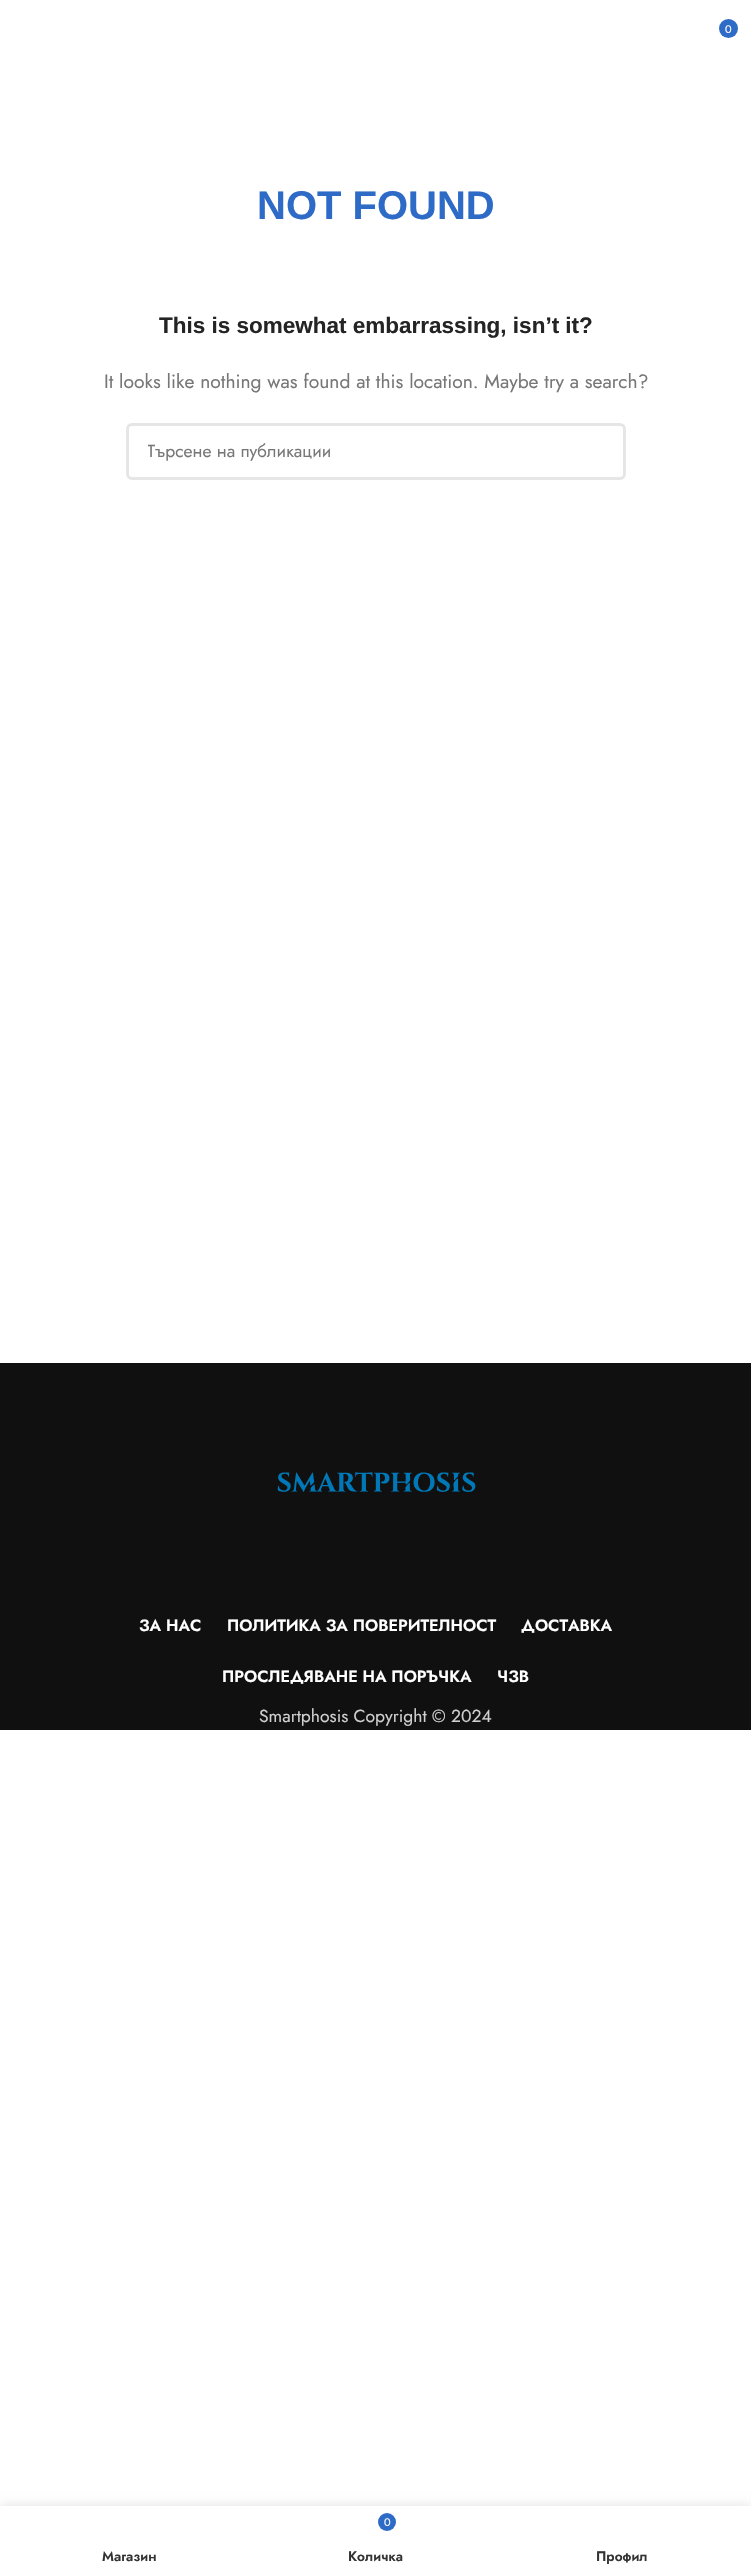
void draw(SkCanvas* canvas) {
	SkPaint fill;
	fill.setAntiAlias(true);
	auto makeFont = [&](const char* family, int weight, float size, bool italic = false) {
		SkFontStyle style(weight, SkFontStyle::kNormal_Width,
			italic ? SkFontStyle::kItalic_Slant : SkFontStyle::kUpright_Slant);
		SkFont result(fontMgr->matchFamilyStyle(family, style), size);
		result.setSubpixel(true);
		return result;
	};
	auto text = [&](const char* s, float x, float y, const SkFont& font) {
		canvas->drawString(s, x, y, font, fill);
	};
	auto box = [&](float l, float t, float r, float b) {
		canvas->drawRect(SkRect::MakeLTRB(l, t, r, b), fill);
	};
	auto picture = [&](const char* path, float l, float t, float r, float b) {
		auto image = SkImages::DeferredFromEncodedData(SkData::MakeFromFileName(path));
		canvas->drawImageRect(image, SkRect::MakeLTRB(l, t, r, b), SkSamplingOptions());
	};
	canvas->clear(0xFFFFFFFF);
	fill.setColor(0xFF2E6BC6);
	canvas->drawCircle(728.5f, 28.5f, 9.5f, fill);
	fill.setStyle(SkPaint::kStroke_Style);
	fill.setStrokeWidth(3);
	fill.setColor(0xFFE6E6E6);
	canvas->drawRoundRect(SkRect::MakeLTRB(127.5f, 424.5f, 624.5f, 478.5f), 4.5f, 4.5f, fill);
	fill.setStyle(SkPaint::kFill_Style);
	fill.setColor(0xFF101010);
	box(0, 1363, 751, 1730);
	picture("image0.png", 277, 1472, 476, 1492);
	fill.setColor(0x1F000000);
	fill.setMaskFilter(SkMaskFilter::MakeBlur(kNormal_SkBlurStyle, 5.5f));
	canvas->drawRect(SkRect::MakeLTRB(0, 2506, 751, 2575), fill);
	fill.setMaskFilter(nullptr);
	fill.setColor(0xFFFFFFFF);
	box(0, 2506, 751, 2575);
	fill.setColor(0xFF2E6BC6);
	canvas->drawCircle(387, 2522, 9, fill);
	auto font1 = makeFont("Jost", 400, 11);
	fill.setColor(0xFFFFFFFF);
	text("0", 725, 33, font1);
	auto font2 = makeFont("Liberation Sans", 700, 40);
	fill.setColor(0xFF2E6BC6);
	text("NOT FOUND", 257, 219, font2);
	auto font3 = makeFont("Liberation Sans", 700, 22.5f);
	fill.setColor(0xFF242424);
	text("This is somewhat embarrassing, isn’t it?", 159, 333, font3);
	auto font4 = makeFont("Jost", 400, 19.25f);
	fill.setColor(0xFF777777);
	text("It looks like nothing was found at this location. Maybe try a search?", 104, 388, font4);
	canvas->save();
	canvas->clipRect(SkRect::MakeLTRB(148, 439, 529, 464));
	auto font5 = makeFont("Jost", 400, 17.5f);
	text("Търсене на публикации", 147, 457, font5);
	canvas->restore();
	auto font6 = makeFont("Jost", 600, 16.25f);
	fill.setColor(0xFFFFFFFF);
	text("ЗА НАС", 139, 1631, font6);
	text("ПОЛИТИКА ЗА ПОВЕРИТЕЛНОСТ", 227, 1631, font6);
	text("ДОСТАВКА", 521, 1631, font6);
	text("ПРОСЛЕДЯВАНЕ НА ПОРЪЧКА", 222, 1682, font6);
	text("ЧЗВ", 497, 1682, font6);
	fill.setColor(0xFFCFCFCF);
	text("Smartphosis Copyright © 2024", 259, 1722, font5);
	auto font7 = makeFont("Jost", 600, 13.75f);
	fill.setColor(0xFF333333);
	text("Магазин", 102, 2561, font7);
	fill.setColor(0xFFFFFFFF);
	text("0", 384, 2526, font1);
	fill.setColor(0xFF333333);
	text("Количка", 348, 2561, font7);
	text("Профил", 596, 2561, font7);
}
